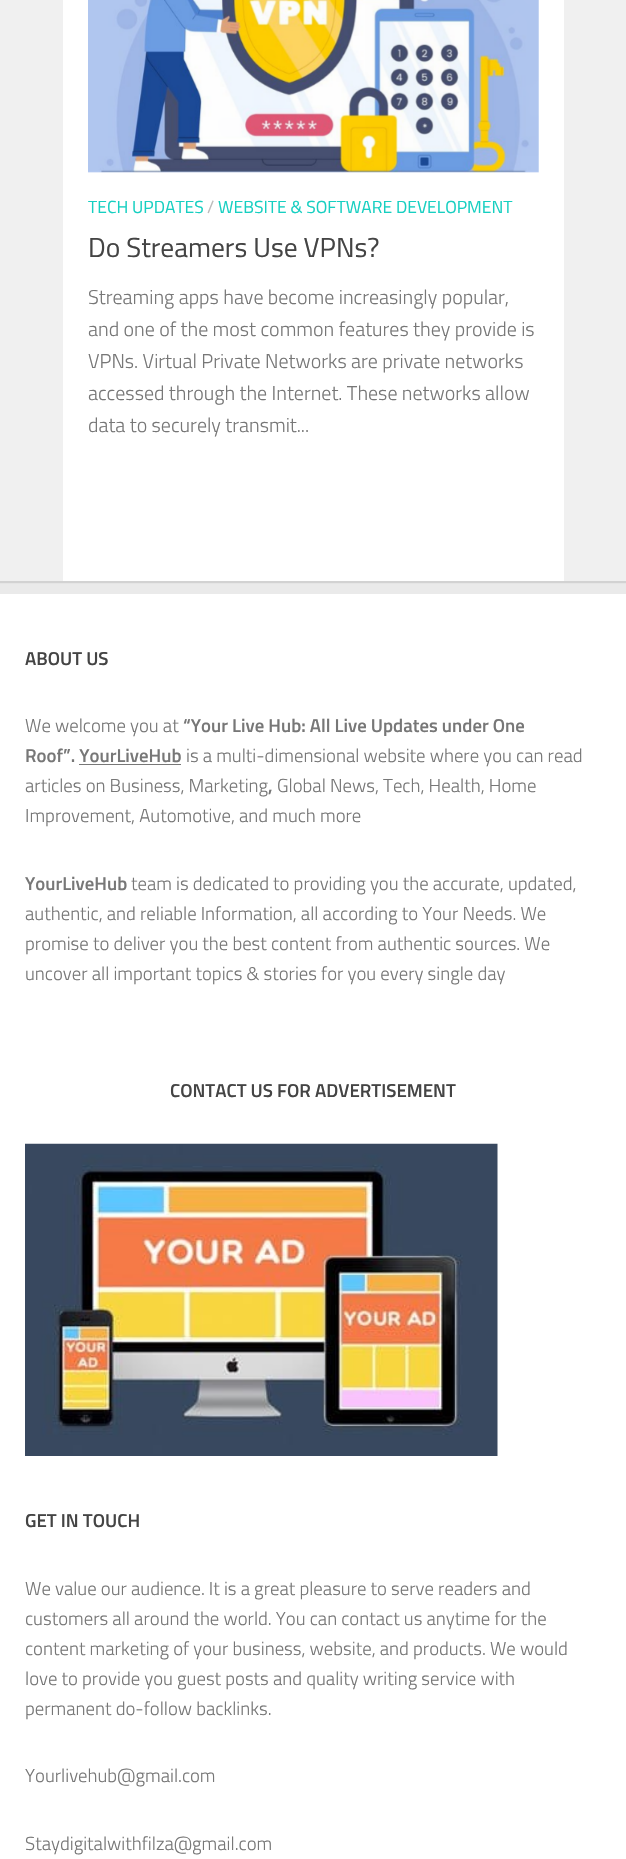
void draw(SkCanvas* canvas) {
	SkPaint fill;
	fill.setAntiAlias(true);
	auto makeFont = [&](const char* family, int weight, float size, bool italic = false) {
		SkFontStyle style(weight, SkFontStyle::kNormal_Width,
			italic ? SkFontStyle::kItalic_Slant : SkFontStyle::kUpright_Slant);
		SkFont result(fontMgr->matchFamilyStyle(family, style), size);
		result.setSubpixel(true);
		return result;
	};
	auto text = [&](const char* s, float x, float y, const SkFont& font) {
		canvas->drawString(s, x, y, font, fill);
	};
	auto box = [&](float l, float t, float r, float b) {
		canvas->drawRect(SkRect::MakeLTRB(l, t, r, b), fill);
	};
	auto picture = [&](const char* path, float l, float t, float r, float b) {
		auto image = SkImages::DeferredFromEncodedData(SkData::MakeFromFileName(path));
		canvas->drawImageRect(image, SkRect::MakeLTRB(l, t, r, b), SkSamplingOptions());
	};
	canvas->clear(0xFFEAEAEA);
	fill.setColor(0x1A000000);
	fill.setMaskFilter(SkMaskFilter::MakeBlur(kNormal_SkBlurStyle, 0.5f));
	canvas->drawRect(SkRect::MakeLTRB(0, -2, 626, 583), fill);
	fill.setMaskFilter(nullptr);
	fill.setColor(0xFFFFFFFF);
	box(63, 0, 564, 581);
	fill.setColor(0xFFF0F0F0);
	box(0, 0, 63, 581);
	picture("image0.png", 88, 0, 539, 173);
	box(564, 0, 626, 581);
	fill.setColor(0xFFFFFFFF);
	box(0, 594, 626, 1859);
	fill.setColor(0xFF777777);
	box(79, 764, 181, 765);
	picture("image1.png", 25, 1143, 498, 1456);
	auto font1 = makeFont("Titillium", 400, 17.5f);
	fill.setColor(0xFF16CFC1);
	text("TECH UPDATES", 88, 213, font1);
	fill.setColor(0xFFBBBBBB);
	text("/", 207, 213, font1);
	fill.setColor(0xFF16CFC1);
	text("WEBSITE & SOFTWARE DEVELOPMENT", 218, 213, font1);
	auto font2 = makeFont("Titillium", 400, 27.5f);
	fill.setColor(0xFF444444);
	text("Do Streamers Use VPNs?", 88, 257, font2);
	auto font3 = makeFont("Titillium", 300, 20);
	fill.setColor(0xFF777777);
	text("Streaming apps have become increasingly popular,", 88, 304, font3);
	text("and one of the most common features they provide is", 88, 336, font3);
	text("VPNs. Virtual Private Networks are private networks", 88, 368, font3);
	text("accessed through the Internet. These networks allow", 88, 400, font3);
	text("data to securely transmit...", 88, 432, font3);
	auto font4 = makeFont("Titillium", 600, 18.75f);
	fill.setColor(0xFF444444);
	text("ABOUT US", 25, 665, font4);
	auto font5 = makeFont("Titillium", 300, 18.75f);
	fill.setColor(0xFF777777);
	text("We welcome you at", 25, 732, font5);
	text("“Your Live Hub: All Live Updates under One", 183, 732, font4);
	text("Roof”. YourLiveHub", 25, 762, font4);
	text("is a multi-dimensional website where you can read", 186, 762, font5);
	text("articles on Business, Marketing", 25, 792, font5);
	text(",", 268, 792, font4);
	text("Global News, Tech, Health, Home", 277, 792, font5);
	text("Improvement, Automotive, and much more", 25, 822, font5);
	text("YourLiveHub", 25, 890, font4);
	text("team is dedicated to providing you the accurate, updated,", 131, 890, font5);
	text("authentic, and reliable Information, all according to Your Needs. We", 25, 920, font5);
	text("promise to deliver you the best content from authentic sources. We", 25, 950, font5);
	text("uncover all important topics & stories for you every single day", 25, 980, font5);
	fill.setColor(0xFF444444);
	text("CONTACT US FOR ADVERTISEMENT", 170, 1097, font4);
	text("GET IN TOUCH", 25, 1527, font4);
	fill.setColor(0xFF777777);
	text("We value our audience. It is a great pleasure to serve readers and", 25, 1595, font5);
	text("customers all around the world. You can contact us anytime for the", 25, 1625, font5);
	text("content marketing of your business, website, and products. We would", 25, 1655, font5);
	text("love to provide you guest posts and quality writing service with", 25, 1685, font5);
	text("permanent do-follow backlinks.", 25, 1715, font5);
	text("Yourlivehub@gmail.com", 25, 1782, font5);
	text("Staydigitalwithfilza@gmail.com", 25, 1850, font5);
}
